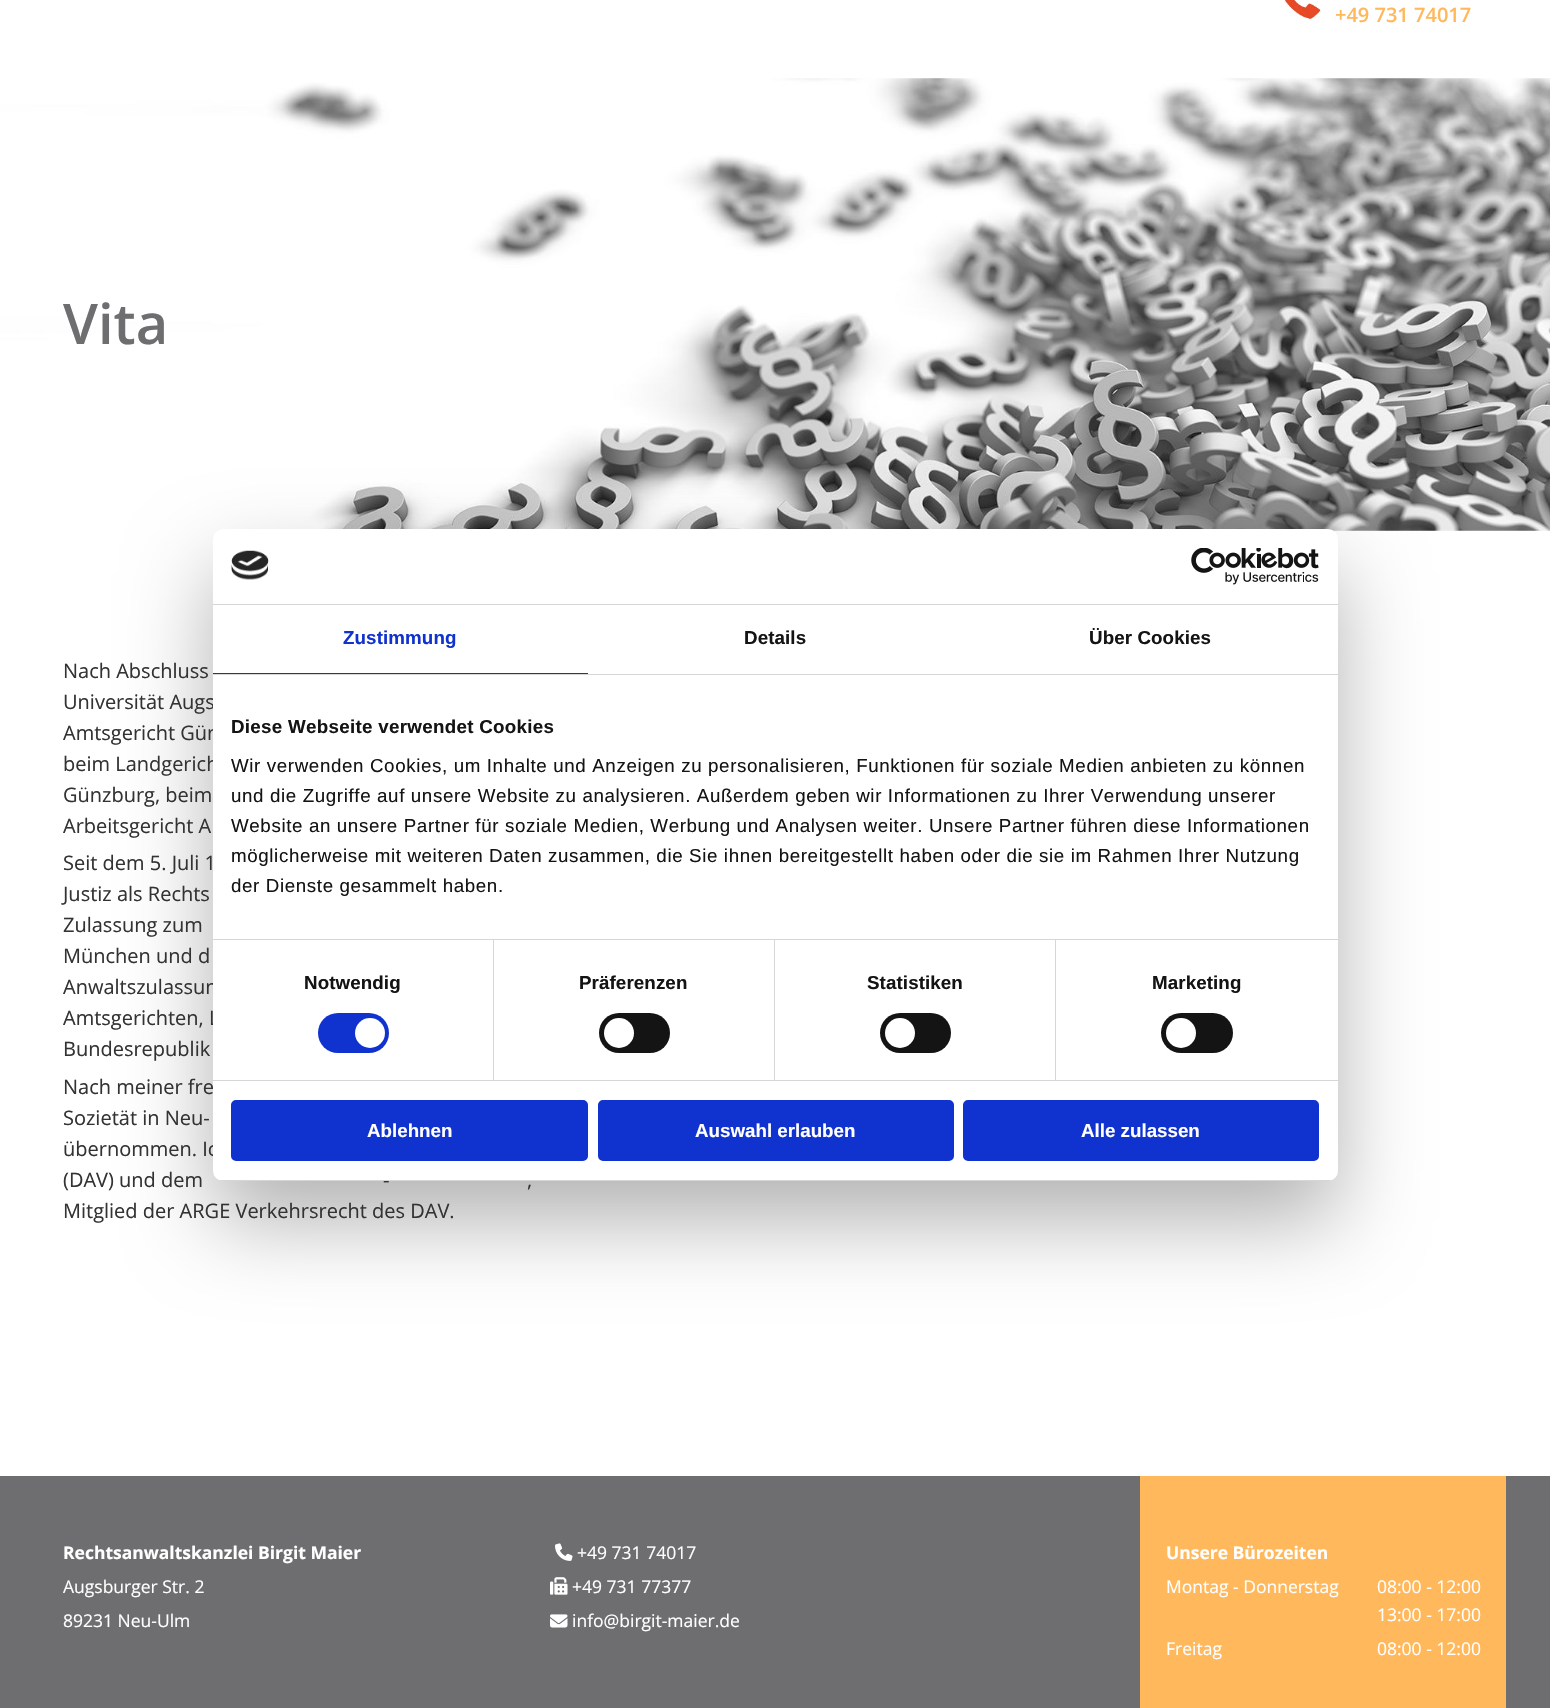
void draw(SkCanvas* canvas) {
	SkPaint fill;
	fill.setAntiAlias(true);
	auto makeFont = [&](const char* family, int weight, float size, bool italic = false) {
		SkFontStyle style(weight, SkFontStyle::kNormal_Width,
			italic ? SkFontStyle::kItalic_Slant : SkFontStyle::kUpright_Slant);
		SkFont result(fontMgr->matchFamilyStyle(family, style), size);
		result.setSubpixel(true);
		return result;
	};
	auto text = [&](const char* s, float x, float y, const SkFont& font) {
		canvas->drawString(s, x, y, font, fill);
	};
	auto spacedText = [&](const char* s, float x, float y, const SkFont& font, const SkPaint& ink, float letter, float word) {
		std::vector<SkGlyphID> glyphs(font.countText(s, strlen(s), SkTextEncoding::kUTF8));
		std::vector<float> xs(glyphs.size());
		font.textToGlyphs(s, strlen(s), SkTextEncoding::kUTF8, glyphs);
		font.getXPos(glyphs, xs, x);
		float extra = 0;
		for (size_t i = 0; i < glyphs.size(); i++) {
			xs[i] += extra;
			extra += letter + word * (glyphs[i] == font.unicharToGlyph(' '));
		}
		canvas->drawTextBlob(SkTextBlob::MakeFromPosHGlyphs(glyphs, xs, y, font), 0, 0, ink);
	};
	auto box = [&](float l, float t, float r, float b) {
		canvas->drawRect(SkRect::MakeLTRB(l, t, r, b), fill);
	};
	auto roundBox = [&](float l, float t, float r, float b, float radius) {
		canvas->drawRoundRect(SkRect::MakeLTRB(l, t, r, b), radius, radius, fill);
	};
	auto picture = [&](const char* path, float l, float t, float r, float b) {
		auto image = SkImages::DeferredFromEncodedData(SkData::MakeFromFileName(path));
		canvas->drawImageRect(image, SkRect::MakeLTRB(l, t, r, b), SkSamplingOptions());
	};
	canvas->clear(0xFFFFFFFF);
	picture("image0.png", 1284, 0, 1321, 19);
	picture("image1.png", 0, 78, 1550, 531);
	fill.setColor(0xFF6E6E70);
	box(0, 1476, 1550, 1708);
	picture("image2.png", 555, 1543, 573, 1561);
	picture("image3.png", 550, 1577, 568, 1595);
	picture("image4.png", 550, 1614, 568, 1628);
	fill.setColor(0xFFFFB85B);
	box(1140, 1476, 1506, 1708);
	fill.setColor(0x4D000000);
	fill.setMaskFilter(SkMaskFilter::MakeBlur(kNormal_SkBlurStyle, 42.5f));
	canvas->drawRoundRect(SkRect::MakeLTRB(213, 569, 1338, 1221), 10, 10, fill);
	fill.setMaskFilter(nullptr);
	auto font1 = makeFont("Open Sans", 600, 20);
	fill.setColor(0xFFFFB85B);
	text("+49 731 74017", 1335, 22, font1);
	auto font2 = makeFont("Open Sans", 600, 56);
	fill.setColor(0xFF6E6E70);
	text("Vita", 63, 344, font2);
	auto font3 = makeFont("Open Sans", 400, 20);
	fill.setColor(0xFF333333);
	text("Nach Abschluss", 63, 678, font3);
	text("Universität Augs", 63, 709, font3);
	text("Amtsgericht Gün", 63, 740, font3);
	text("beim Landgerich", 63, 771, font3);
	text("Günzburg, beim", 63, 802, font3);
	text("Arbeitsgericht A", 63, 833, font3);
	text("Seit dem 5. Juli 1", 63, 870, font3);
	text("Justiz als Rechts", 63, 901, font3);
	text("Zulassung zum", 63, 932, font3);
	text("München und d", 63, 963, font3);
	text("Anwaltszulassun", 63, 994, font3);
	text("Amtsgerichten, L", 63, 1025, font3);
	text("Bundesrepublik", 63, 1056, font3);
	text("Nach meiner fre", 63, 1094, font3);
	text("Sozietät in Neu-", 63, 1125, font3);
	text("übernommen. Ic", 63, 1156, font3);
	text("(DAV) und dem", 63, 1187, font3);
	text("-", 383, 1187, font3);
	text(",", 527, 1187, font3);
	text("Mitglied der ARGE Verkehrsrecht des DAV.", 63, 1218, font3);
	auto font4 = makeFont("Open Sans", 700, 17.5f);
	fill.setColor(0xFFFFFFFF);
	text("Rechtsanwaltskanzlei Birgit Maier", 63, 1559, font4);
	auto font5 = makeFont("Open Sans", 400, 17.5f);
	text("Augsburger Str. 2", 63, 1593, font5);
	text("89231 Neu-Ulm", 63, 1627, font5);
	text("+49 731 74017", 577, 1559, font5);
	text("+49 731 77377", 572, 1593, font5);
	text("info@birgit-maier.de", 572, 1627, font5);
	text("Unsere Bürozeiten", 1166, 1559, font4);
	text("Montag - Donnerstag", 1166, 1593, font5);
	text("08:00 - 12:00", 1377, 1593, font5);
	text("13:00 - 17:00", 1377, 1621, font5);
	text("Freitag", 1166, 1655, font5);
	text("08:00 - 12:00", 1377, 1655, font5);
	roundBox(213, 529, 1338, 1181, 10);
	fill.setColor(0xFFD6D6D6);
	box(213, 604, 1338, 605);
	picture("image5.png", 231, 550, 269, 580);
	picture("image6.png", 1191, 548, 1319, 585);
	box(213, 674, 1338, 675);
	fill.setColor(0xFF1032CF);
	box(213, 673, 588, 674);
	auto font6 = makeFont("Liberation Sans", 700, 18.75f);
	spacedText("Zustimmung", 343, 644, font6, fill, 0.1f, 0);
	fill.setColor(0xFF141414);
	spacedText("Details", 744, 644, font6, fill, 0.1f, 0);
	spacedText("Über Cookies", 1089, 644, font6, fill, 0.1f, 0);
	fill.setColor(0xFFD6D6D6);
	box(213, 939, 1338, 940);
	fill.setColor(0xFF141414);
	spacedText("Diese Webseite verwendet Cookies", 231, 733, font6, fill, 0.3f, 0);
	auto font7 = makeFont("Liberation Sans", 400, 18.75f);
	spacedText("Wir verwenden Cookies, um Inhalte und Anzeigen zu personalisieren, Funktionen für soziale Medien anbieten zu können", 231, 772, font7, fill, 0.62f, 0);
	spacedText("und die Zugriffe auf unsere Website zu analysieren. Außerdem geben wir Informationen zu Ihrer Verwendung unserer", 231, 802, font7, fill, 0.62f, 0);
	spacedText("Website an unsere Partner für soziale Medien, Werbung und Analysen weiter. Unsere Partner führen diese Informationen", 231, 832, font7, fill, 0.62f, 0);
	spacedText("möglicherweise mit weiteren Daten zusammen, die Sie ihnen bereitgestellt haben oder die sie im Rahmen Ihrer Nutzung", 231, 862, font7, fill, 0.62f, 0);
	spacedText("der Dienste gesammelt haben.", 231, 892, font7, fill, 0.62f, 0);
	fill.setColor(0xFFD6D6D6);
	box(213, 1080, 1338, 1081);
	box(493, 940, 494, 1080);
	fill.setColor(0xFF141414);
	spacedText("Notwendig", 304, 989, font6, fill, 0.1f, 0);
	fill.setColor(0xFF1032CF);
	roundBox(318, 1013, 389, 1053, 20);
	fill.setColor(0xFFFFFFFF);
	canvas->drawCircle(370, 1033, 15, fill);
	fill.setColor(0xFFD6D6D6);
	box(774, 940, 775, 1080);
	fill.setColor(0xFF141414);
	spacedText("Präferenzen", 579, 989, font6, fill, 0.1f, 0);
	roundBox(599, 1013, 670, 1053, 20);
	fill.setColor(0xFFFFFFFF);
	canvas->drawCircle(619, 1033, 15, fill);
	fill.setColor(0xFFD6D6D6);
	box(1055, 940, 1056, 1080);
	fill.setColor(0xFF141414);
	spacedText("Statistiken", 867, 989, font6, fill, 0.1f, 0);
	roundBox(880, 1013, 951, 1053, 20);
	fill.setColor(0xFFFFFFFF);
	canvas->drawCircle(900, 1033, 15, fill);
	fill.setColor(0xFF141414);
	spacedText("Marketing", 1152, 989, font6, fill, 0.1f, 0);
	roundBox(1161, 1013, 1233, 1053, 20);
	fill.setColor(0xFFFFFFFF);
	canvas->drawCircle(1181, 1033, 15, fill);
	canvas->save();
	canvas->clipPath(SkPathBuilder().moveTo(223, 529).lineTo(1328, 529).cubicTo(1333.5f, 529, 1338, 533.5f, 1338, 539).lineTo(1338, 1171).cubicTo(1338, 1176.5f, 1333.5f, 1181, 1328, 1181).lineTo(223, 1181).cubicTo(217.5f, 1181, 213, 1176.5f, 213, 1171).lineTo(213, 539).cubicTo(213, 533.5f, 217.5f, 529, 223, 529).close().detach(), true);
	fill.setColor(0xFFD6D6D6);
	box(213, 1180, 1338, 1181);
	canvas->restore();
	fill.setColor(0xFF1032CF);
	canvas->drawRoundRect(SkRect::MakeLTRB(232.5f, 1101.5f, 586.5f, 1159.5f), 3.5f, 3.5f, fill);
	fill.setStyle(SkPaint::kStroke_Style);
	fill.setStrokeWidth(3);
	canvas->drawRoundRect(SkRect::MakeLTRB(232.5f, 1101.5f, 586.5f, 1159.5f), 3.5f, 3.5f, fill);
	fill.setStyle(SkPaint::kFill_Style);
	fill.setColor(0xFFFFFFFF);
	text("Ablehnen", 367, 1137, font6);
	fill.setColor(0xFF1032CF);
	canvas->drawRoundRect(SkRect::MakeLTRB(599.5f, 1101.5f, 952.5f, 1159.5f), 3.5f, 3.5f, fill);
	fill.setStyle(SkPaint::kStroke_Style);
	canvas->drawRoundRect(SkRect::MakeLTRB(599.5f, 1101.5f, 952.5f, 1159.5f), 3.5f, 3.5f, fill);
	fill.setStyle(SkPaint::kFill_Style);
	fill.setColor(0xFFFFFFFF);
	text("Auswahl erlauben", 695, 1137, font6);
	fill.setColor(0xFF1032CF);
	canvas->drawRoundRect(SkRect::MakeLTRB(964.5f, 1101.5f, 1317.5f, 1159.5f), 3.5f, 3.5f, fill);
	fill.setStyle(SkPaint::kStroke_Style);
	canvas->drawRoundRect(SkRect::MakeLTRB(964.5f, 1101.5f, 1317.5f, 1159.5f), 3.5f, 3.5f, fill);
	fill.setStyle(SkPaint::kFill_Style);
	fill.setColor(0xFFFFFFFF);
	text("Alle zulassen", 1081, 1137, font6);
}
